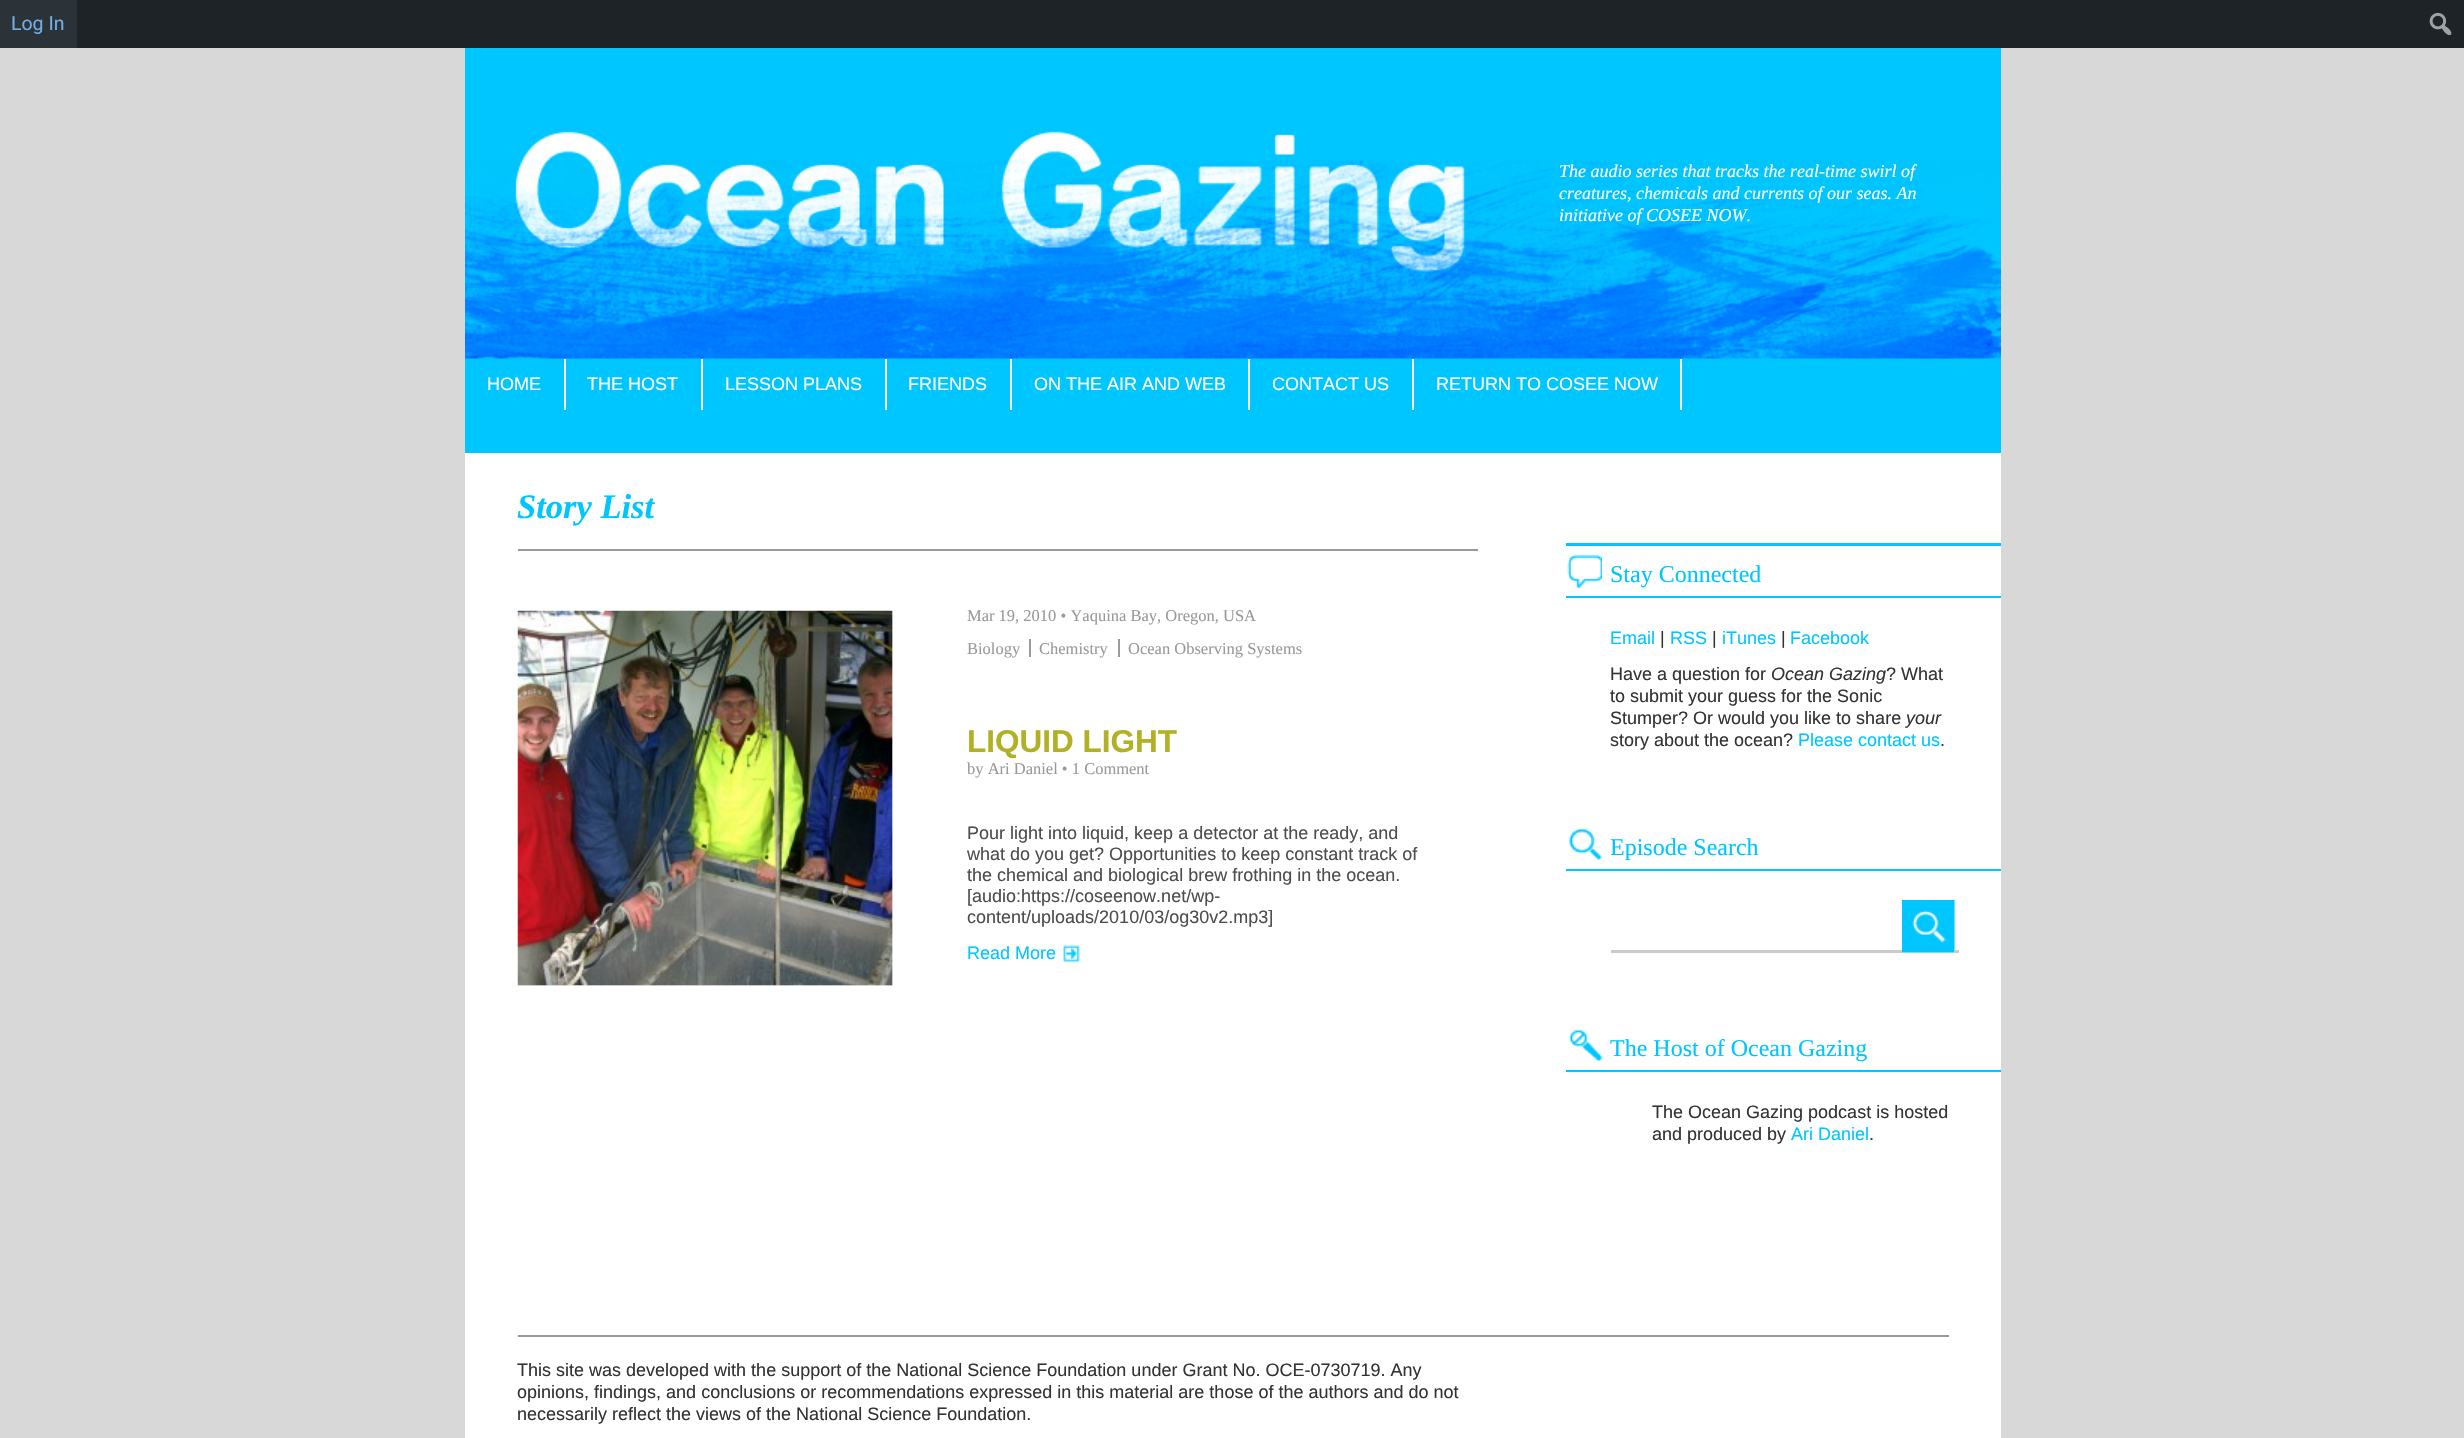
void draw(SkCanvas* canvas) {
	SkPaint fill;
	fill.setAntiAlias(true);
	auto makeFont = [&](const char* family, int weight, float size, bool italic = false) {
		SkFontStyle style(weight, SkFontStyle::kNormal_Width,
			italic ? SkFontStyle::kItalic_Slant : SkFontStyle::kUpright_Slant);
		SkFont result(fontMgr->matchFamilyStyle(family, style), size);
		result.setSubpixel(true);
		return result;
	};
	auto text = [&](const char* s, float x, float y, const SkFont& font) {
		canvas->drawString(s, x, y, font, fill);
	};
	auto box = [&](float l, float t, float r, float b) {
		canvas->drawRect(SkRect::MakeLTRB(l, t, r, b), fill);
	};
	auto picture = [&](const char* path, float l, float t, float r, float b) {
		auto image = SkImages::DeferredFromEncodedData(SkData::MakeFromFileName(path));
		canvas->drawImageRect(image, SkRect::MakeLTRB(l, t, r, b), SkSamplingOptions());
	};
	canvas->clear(0xFFD8D8D8);
	fill.setColor(0xFF1D2327);
	box(77, 0, 2464, 48);
	fill.setColor(0xFF2C3338);
	box(0, 0, 77, 48);
	picture("image0.png", 2429, 12, 2452, 36);
	fill.setColor(0xFFFFFFFF);
	box(465, 453, 2001, 1438);
	fill.setColor(0xFF00C6FF);
	box(465, 48, 2001, 453);
	picture("image1.png", 465, 131, 2001, 359);
	fill.setColor(0xFFFFFEFE);
	box(564, 359, 566, 410);
	box(701, 359, 703, 410);
	box(885, 359, 887, 410);
	box(1010, 359, 1012, 410);
	box(1248, 359, 1250, 410);
	box(1412, 359, 1414, 410);
	box(1680, 359, 1682, 410);
	fill.setColor(0xFF999999);
	box(518, 549, 1478, 551);
	fill.setColor(0xFFEDEDED);
	box(518, 611, 893, 986);
	picture("image2.png", 517, 610, 893, 986);
	fill.setColor(0xFF999999);
	box(1029, 639, 1031, 657);
	box(1118, 639, 1120, 657);
	picture("image3.png", 1063, 944, 1080, 962);
	fill.setColor(0xFF00C6FF);
	box(1566, 543, 2001, 546);
	picture("image4.png", 1567, 554, 1602, 588);
	box(1566, 596, 2001, 598);
	picture("image5.png", 1568, 828, 1602, 860);
	box(1566, 869, 2001, 871);
	fill.setColor(0xFFCACACA);
	box(1611, 950, 1959, 953);
	fill.setColor(0xFFEFEFEF);
	box(1902, 900, 1955, 953);
	picture("image6.png", 1902, 900, 1955, 953);
	picture("image7.png", 1569, 1030, 1602, 1061);
	fill.setColor(0xFF00C6FF);
	box(1566, 1070, 2001, 1072);
	fill.setColor(0xFF999999);
	box(518, 1335, 1949, 1337);
	auto font1 = makeFont("Roboto", 400, 19.5f);
	fill.setColor(0xFF72AEE6);
	text("Log In", 11, 30, font1);
	auto font2 = makeFont("Liberation Serif", 400, 18, true);
	fill.setColor(0xFFFFFEFE);
	text("The audio series that tracks the real-time swirl of", 1559, 177, font2);
	text("creatures, chemicals and currents of our seas. An", 1559, 199, font2);
	text("initiative of COSEE NOW.", 1559, 221, font2);
	auto font3 = makeFont("Liberation Sans", 400, 18);
	text("HOME", 487, 390, font3);
	text("THE HOST", 587, 390, font3);
	text("LESSON PLANS", 725, 390, font3);
	text("FRIENDS", 908, 390, font3);
	text("ON THE AIR AND WEB", 1034, 390, font3);
	text("CONTACT US", 1272, 390, font3);
	text("RETURN TO COSEE NOW", 1436, 390, font3);
	auto font4 = makeFont("Liberation Serif", 700, 34.5f, true);
	fill.setColor(0xFF00C6FF);
	text("Story List", 517, 518, font4);
	auto font5 = makeFont("Liberation Serif", 400, 16.5f);
	fill.setColor(0xFF999999);
	text("Mar 19, 2010 • Yaquina Bay, Oregon, USA", 967, 621, font5);
	text("Biology", 967, 654, font5);
	text("Chemistry", 1039, 654, font5);
	text("Ocean Observing Systems", 1128, 654, font5);
	auto font6 = makeFont("Liberation Sans", 700, 31.5f);
	fill.setColor(0xFFB2B024);
	text("LIQUID LIGHT", 967, 752, font6);
	fill.setColor(0xFF999999);
	text("by Ari Daniel • 1 Comment", 967, 774, font5);
	fill.setColor(0xFF4D4D4D);
	text("Pour light into liquid, keep a detector at the ready, and", 967, 839, font3);
	text("what do you get? Opportunities to keep constant track of", 967, 860, font3);
	text("the chemical and biological brew frothing in the ocean.", 967, 881, font3);
	text("[audio:https://coseenow.net/wp-", 967, 902, font3);
	text("content/uploads/2010/03/og30v2.mp3]", 967, 923, font3);
	fill.setColor(0xFF00C6FF);
	text("Read More", 967, 959, font3);
	auto font7 = makeFont("Liberation Serif", 400, 24);
	text("Stay Connected", 1610, 582, font7);
	text("Email", 1610, 644, font3);
	fill.setColor(0xFF333333);
	text("|", 1660, 644, font3);
	fill.setColor(0xFF00C6FF);
	text("RSS", 1670, 644, font3);
	fill.setColor(0xFF333333);
	text("|", 1712, 644, font3);
	fill.setColor(0xFF00C6FF);
	text("iTunes", 1722, 644, font3);
	fill.setColor(0xFF333333);
	text("|", 1781, 644, font3);
	fill.setColor(0xFF00C6FF);
	text("Facebook", 1790, 644, font3);
	fill.setColor(0xFF333333);
	text("Have a question for", 1610, 680, font3);
	auto font8 = makeFont("Liberation Sans", 400, 18, true);
	text("Ocean Gazing", 1771, 680, font8);
	text("? What", 1886, 680, font3);
	text("to submit your guess for the Sonic", 1610, 702, font3);
	text("Stumper? Or would you like to share", 1610, 724, font3);
	text("your", 1906, 724, font8);
	text("story about the ocean?", 1610, 746, font3);
	fill.setColor(0xFF00C6FF);
	text("Please contact us", 1798, 746, font3);
	fill.setColor(0xFF333333);
	text(".", 1940, 746, font3);
	fill.setColor(0xFF00C6FF);
	text("Episode Search", 1610, 855, font7);
	text("The Host of Ocean Gazing", 1610, 1056, font7);
	fill.setColor(0xFF333333);
	text("The Ocean Gazing podcast is hosted", 1652, 1118, font3);
	text("and produced by", 1652, 1140, font3);
	fill.setColor(0xFF00C6FF);
	text("Ari Daniel", 1791, 1140, font3);
	fill.setColor(0xFF333333);
	text(".", 1869, 1140, font3);
	text("This site was developed with the support of the National Science Foundation under Grant No. OCE-0730719. Any", 517, 1376, font3);
	text("opinions, findings, and conclusions or recommendations expressed in this material are those of the authors and do not", 517, 1398, font3);
	text("necessarily reflect the views of the National Science Foundation.", 517, 1420, font3);
}
